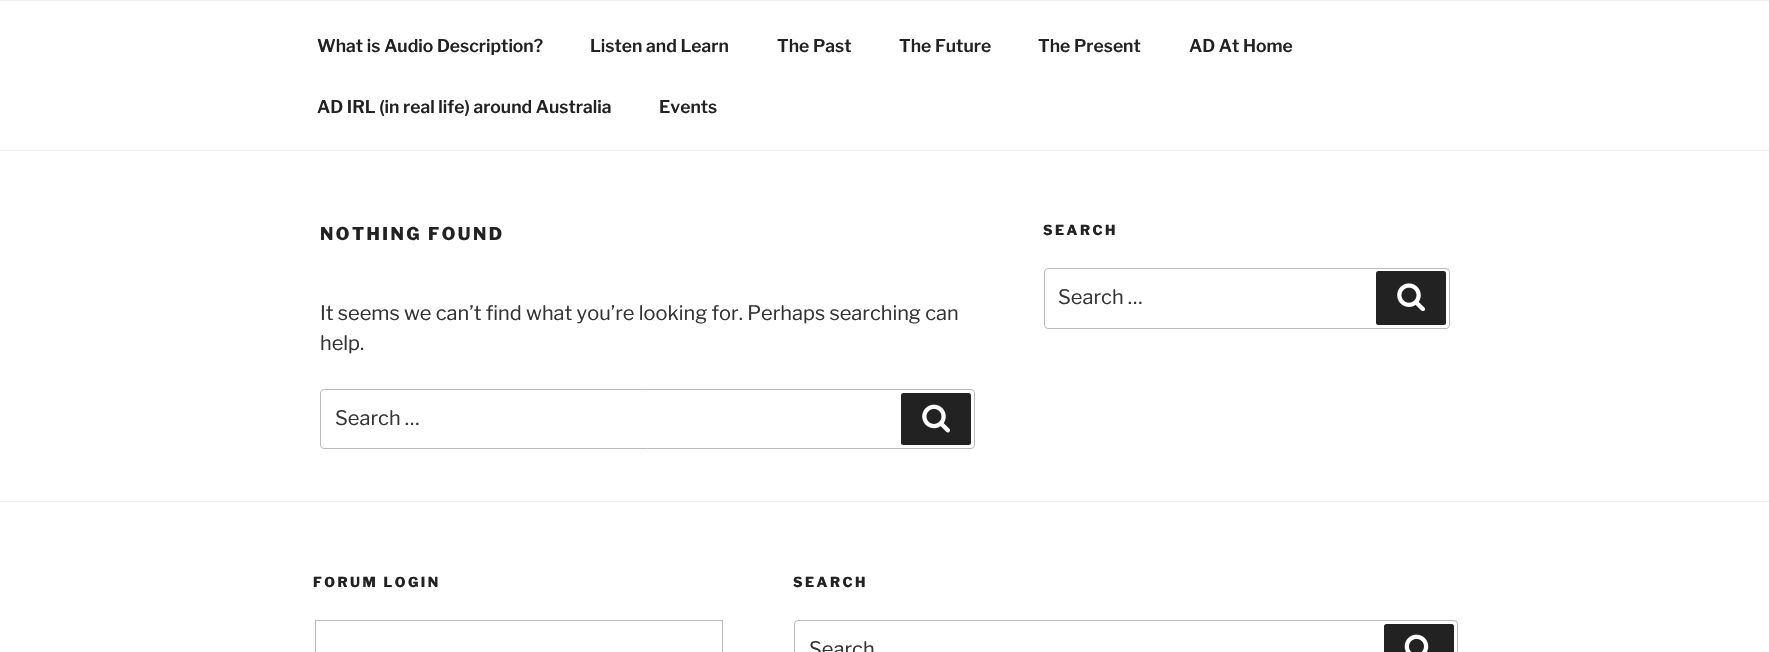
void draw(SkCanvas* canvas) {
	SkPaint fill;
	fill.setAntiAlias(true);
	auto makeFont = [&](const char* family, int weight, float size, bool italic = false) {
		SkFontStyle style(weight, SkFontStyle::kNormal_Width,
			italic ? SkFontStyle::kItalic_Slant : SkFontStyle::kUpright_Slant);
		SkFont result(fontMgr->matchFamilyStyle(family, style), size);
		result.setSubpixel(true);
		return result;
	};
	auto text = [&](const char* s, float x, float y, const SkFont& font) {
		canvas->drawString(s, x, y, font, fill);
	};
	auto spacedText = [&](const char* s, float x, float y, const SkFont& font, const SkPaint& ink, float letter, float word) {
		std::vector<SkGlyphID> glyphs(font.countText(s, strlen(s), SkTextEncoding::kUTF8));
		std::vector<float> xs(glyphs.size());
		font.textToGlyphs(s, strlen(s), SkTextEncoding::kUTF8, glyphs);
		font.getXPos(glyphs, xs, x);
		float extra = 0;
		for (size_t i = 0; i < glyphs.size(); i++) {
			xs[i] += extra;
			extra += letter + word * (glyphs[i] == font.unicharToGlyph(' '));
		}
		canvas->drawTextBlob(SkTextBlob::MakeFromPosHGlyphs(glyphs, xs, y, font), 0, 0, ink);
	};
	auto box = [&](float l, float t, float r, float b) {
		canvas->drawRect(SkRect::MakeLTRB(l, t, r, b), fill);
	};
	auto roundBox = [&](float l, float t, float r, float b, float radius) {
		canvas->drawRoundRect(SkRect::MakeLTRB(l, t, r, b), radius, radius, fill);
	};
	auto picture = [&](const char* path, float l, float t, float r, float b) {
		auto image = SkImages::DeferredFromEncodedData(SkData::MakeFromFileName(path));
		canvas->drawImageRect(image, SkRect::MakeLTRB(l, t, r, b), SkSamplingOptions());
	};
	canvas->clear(0xFFFFFFFF);
	fill.setColor(0xFFEEEEEE);
	box(0, 0, 1769, 1);
	box(0, 150, 1769, 151);
	fill.setStyle(SkPaint::kStroke_Style);
	fill.setStrokeWidth(1);
	fill.setColor(0xFFBBBBBB);
	canvas->drawRoundRect(SkRect::MakeLTRB(320.5f, 389.5f, 974.5f, 448.5f), 3.5f, 3.5f, fill);
	fill.setStyle(SkPaint::kFill_Style);
	fill.setColor(0xFF222222);
	roundBox(901, 393, 971, 445, 2.5f);
	picture("image0.png", 922, 404, 950, 433);
	fill.setStyle(SkPaint::kStroke_Style);
	fill.setColor(0xFFBBBBBB);
	canvas->drawRoundRect(SkRect::MakeLTRB(1044.5f, 268.5f, 1449.5f, 328.5f), 3.5f, 3.5f, fill);
	fill.setStyle(SkPaint::kFill_Style);
	fill.setColor(0xFF222222);
	roundBox(1376, 271, 1446, 325, 2.5f);
	picture("image1.png", 1397, 283, 1425, 311);
	fill.setColor(0xFFEEEEEE);
	box(0, 501, 1769, 502);
	fill.setStyle(SkPaint::kStroke_Style);
	fill.setColor(0xFFBBBBBB);
	canvas->drawRect(SkRect::MakeLTRB(315.5f, 620.5f, 722.5f, 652.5f), fill);
	canvas->drawRoundRect(SkRect::MakeLTRB(794.5f, 620.5f, 1457.5f, 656.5f), 3.5f, 3.5f, fill);
	fill.setStyle(SkPaint::kFill_Style);
	fill.setColor(0xFF222222);
	roundBox(1384, 624, 1454, 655, 2.5f);
	picture("image2.png", 1404, 634, 1429, 652);
	auto font1 = makeFont("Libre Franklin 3", 100, 17.5f);
	text("What is Audio Description?", 317, 52, font1);
	text("Listen and Learn", 590, 52, font1);
	text("The Past", 777, 52, font1);
	text("The Future", 899, 52, font1);
	text("The Present", 1038, 52, font1);
	text("AD At Home", 1189, 52, font1);
	text("AD IRL (in real life) around Australia", 317, 113, font1);
	text("Events", 659, 113, font1);
	auto font2 = makeFont("Libre Franklin", 100, 17.5f);
	spacedText("NOTHING FOUND", 320, 240, font2, fill, 2.5f, 0);
	auto font3 = makeFont("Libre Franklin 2", 100, 20);
	fill.setColor(0xFF333333);
	text("It seems we can’t find what you’re looking for. Perhaps searching can", 320, 320, font3);
	text("help.", 320, 350, font3);
	text("Search …", 335, 425, font3);
	auto font4 = makeFont("Libre Franklin", 100, 13.75f);
	fill.setColor(0xFF222222);
	spacedText("SEARCH", 1043, 235, font4, fill, 2.5f, 0);
	fill.setColor(0xFF333333);
	text("Search …", 1058, 304, font3);
	fill.setColor(0xFF222222);
	spacedText("FORUM LOGIN", 313, 587, font4, fill, 2.5f, 0);
	spacedText("SEARCH", 793, 587, font4, fill, 2.5f, 0);
	fill.setColor(0xFF333333);
	text("Search", 809, 656, font3);
}
